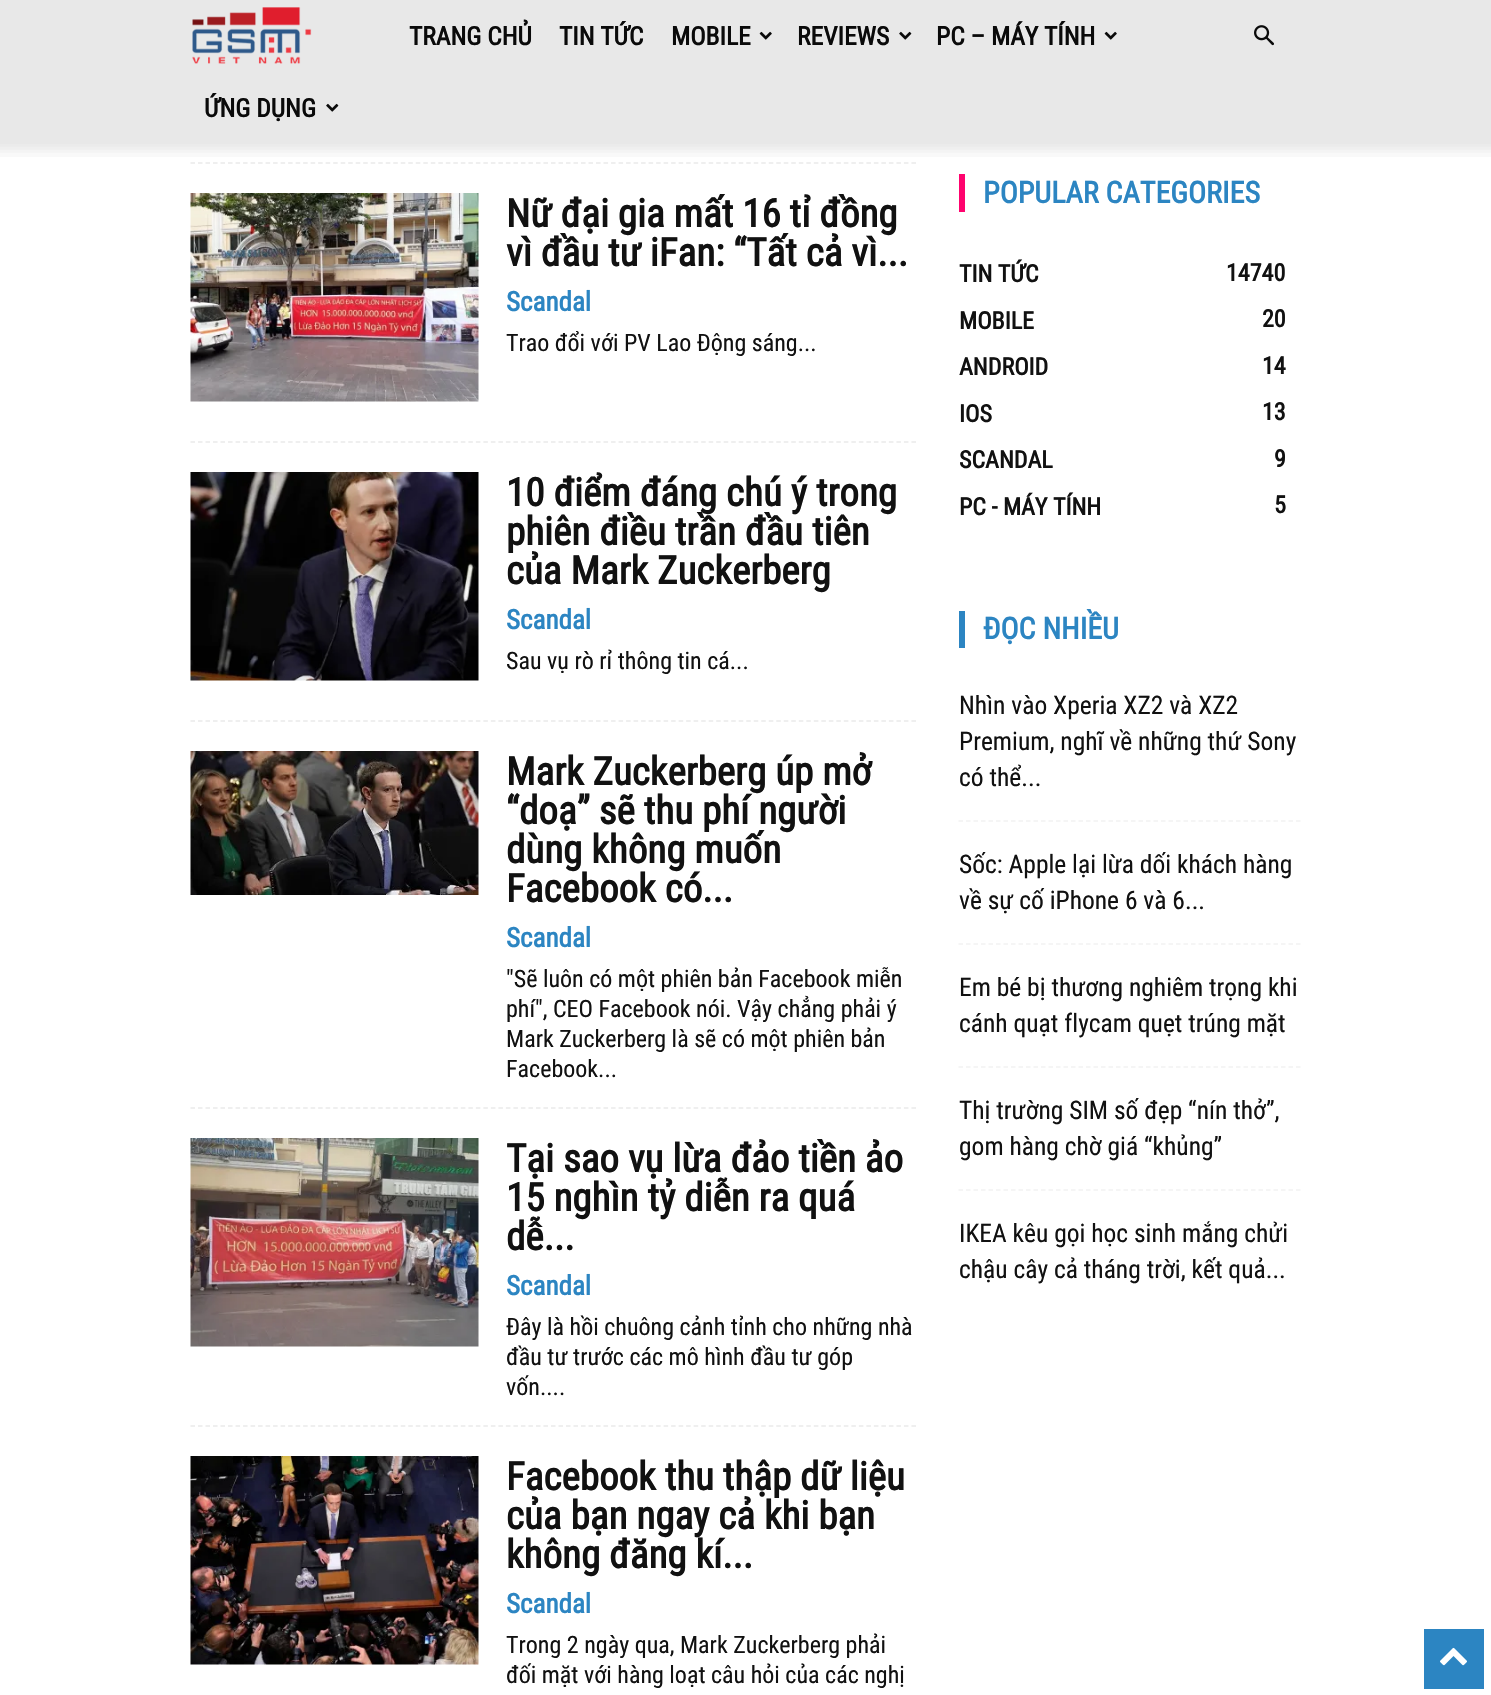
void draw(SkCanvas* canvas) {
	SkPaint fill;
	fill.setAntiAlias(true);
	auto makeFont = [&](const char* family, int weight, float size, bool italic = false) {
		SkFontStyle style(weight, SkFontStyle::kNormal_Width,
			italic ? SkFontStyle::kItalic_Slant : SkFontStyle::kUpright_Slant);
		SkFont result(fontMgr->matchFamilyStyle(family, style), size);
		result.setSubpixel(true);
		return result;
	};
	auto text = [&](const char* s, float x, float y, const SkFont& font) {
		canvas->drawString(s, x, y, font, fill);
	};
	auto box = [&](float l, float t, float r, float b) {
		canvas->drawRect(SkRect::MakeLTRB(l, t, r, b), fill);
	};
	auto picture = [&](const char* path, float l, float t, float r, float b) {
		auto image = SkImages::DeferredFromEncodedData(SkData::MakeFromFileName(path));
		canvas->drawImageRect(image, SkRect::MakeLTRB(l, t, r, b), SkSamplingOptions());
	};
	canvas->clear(0xFFFFFFFF);
	fill.setColor(0xFFE8E8E8);
	box(0, 0, 1491, 144);
	picture("image0.png", 192, 7, 312, 64);
	picture("image1.png", 759, 31, 772, 40);
	picture("image2.png", 899, 31, 912, 40);
	picture("image1.png", 1104, 31, 1117, 40);
	picture("image2.png", 326, 103, 339, 112);
	picture("image3.png", 1254, 25, 1274, 46);
	picture("image4.png", 0, 144, 1491, 157);
	fill.setStyle(SkPaint::kStroke_Style);
	fill.setStrokeWidth(1.5f);
	fill.setColor(0xFFEAEAEA);
	fill.setPathEffect(SkDashPathEffect::Make({{4.5f, 3.01f}}, 0));
	canvas->drawPath(SkPathBuilder().moveTo(190.5f, 163).lineTo(916.5f, 163).detach(), fill);
	fill.setPathEffect(nullptr);
	fill.setPathEffect(SkDashPathEffect::Make({{4.5f, 3.01f}}, 0));
	canvas->drawPath(SkPathBuilder().moveTo(190.5f, 442).lineTo(916.5f, 442).detach(), fill);
	fill.setPathEffect(nullptr);
	picture("image5.png", 190, 193, 479, 402);
	fill.setPathEffect(SkDashPathEffect::Make({{4.5f, 3.01f}}, 0));
	canvas->drawPath(SkPathBuilder().moveTo(190.5f, 721).lineTo(916.5f, 721).detach(), fill);
	fill.setPathEffect(nullptr);
	picture("image6.png", 190, 472, 479, 681);
	fill.setPathEffect(SkDashPathEffect::Make({{4.5f, 3.01f}}, 0));
	canvas->drawPath(SkPathBuilder().moveTo(190.5f, 1108).lineTo(916.5f, 1108).detach(), fill);
	fill.setPathEffect(nullptr);
	picture("image7.png", 190, 751, 479, 895);
	fill.setPathEffect(SkDashPathEffect::Make({{4.5f, 3.01f}}, 0));
	canvas->drawPath(SkPathBuilder().moveTo(190.5f, 1426).lineTo(916.5f, 1426).detach(), fill);
	fill.setPathEffect(nullptr);
	picture("image8.png", 190, 1138, 479, 1347);
	picture("image9.png", 190, 1456, 479, 1665);
	fill.setStyle(SkPaint::kFill_Style);
	fill.setColor(0xFFFF036E);
	box(959, 174, 965, 212);
	fill.setColor(0xFF2C85C2);
	box(959, 611, 965, 648);
	fill.setStyle(SkPaint::kStroke_Style);
	fill.setColor(0xFFF2F2F2);
	fill.setPathEffect(SkDashPathEffect::Make({{4.5f, 3}}, 0));
	canvas->drawPath(SkPathBuilder().moveTo(958.5f, 821).lineTo(1300.5f, 821).detach(), fill);
	fill.setPathEffect(nullptr);
	fill.setPathEffect(SkDashPathEffect::Make({{4.5f, 3}}, 0));
	canvas->drawPath(SkPathBuilder().moveTo(958.5f, 944).lineTo(1300.5f, 944).detach(), fill);
	fill.setPathEffect(nullptr);
	fill.setPathEffect(SkDashPathEffect::Make({{4.5f, 3}}, 0));
	canvas->drawPath(SkPathBuilder().moveTo(958.5f, 1067).lineTo(1300.5f, 1067).detach(), fill);
	fill.setPathEffect(nullptr);
	fill.setPathEffect(SkDashPathEffect::Make({{4.5f, 3}}, 0));
	canvas->drawPath(SkPathBuilder().moveTo(958.5f, 1190).lineTo(1300.5f, 1190).detach(), fill);
	fill.setPathEffect(nullptr);
	fill.setStyle(SkPaint::kFill_Style);
	fill.setColor(0xFF2C85C2);
	box(1424, 1629, 1484, 1689);
	picture("image10.png", 1440, 1647, 1467, 1666);
	auto font1 = makeFont("Roboto Condensed", 700, 25.5f);
	fill.setColor(0xFF0A0A0A);
	text("TRANG CHỦ", 409, 45, font1);
	text("TIN TỨC", 559, 45, font1);
	text("MOBILE", 671, 45, font1);
	text("REVIEWS", 797, 45, font1);
	text("PC – MÁY TÍNH", 936, 45, font1);
	text("ỨNG DỤNG", 204, 117, font1);
	auto font2 = makeFont("Roboto Condensed", 700, 39);
	fill.setColor(0xFF111111);
	text("Nữ đại gia mất 16 tỉ đồng", 506, 227, font2);
	text("vì đầu tư iFan: “Tất cả vì...", 506, 266, font2);
	auto font3 = makeFont("Roboto Condensed", 700, 27);
	fill.setColor(0xFF2C85C2);
	text("Scandal", 506, 311, font3);
	auto font4 = makeFont("Roboto Condensed", 400, 24);
	fill.setColor(0xFF111111);
	text("Trao đổi với PV Lao Động sáng...", 506, 351, font4);
	text("10 điểm đáng chú ý trong", 506, 506, font2);
	text("phiên điều trần đầu tiên", 506, 545, font2);
	text("của Mark Zuckerberg", 506, 584, font2);
	fill.setColor(0xFF2C85C2);
	text("Scandal", 506, 629, font3);
	fill.setColor(0xFF111111);
	text("Sau vụ rò rỉ thông tin cá...", 506, 669, font4);
	text("Mark Zuckerberg úp mở", 506, 785, font2);
	text("“doạ” sẽ thu phí người", 506, 824, font2);
	text("dùng không muốn", 506, 863, font2);
	text("Facebook có...", 506, 902, font2);
	fill.setColor(0xFF2C85C2);
	text("Scandal", 506, 947, font3);
	fill.setColor(0xFF111111);
	text("\"Sẽ luôn có một phiên bản Facebook miễn", 506, 987, font4);
	text("phí\", CEO Facebook nói. Vậy chẳng phải ý", 506, 1017, font4);
	text("Mark Zuckerberg là sẽ có một phiên bản", 506, 1047, font4);
	text("Facebook...", 506, 1077, font4);
	text("Tại sao vụ lừa đảo tiền ảo", 506, 1172, font2);
	text("15 nghìn tỷ diễn ra quá", 506, 1211, font2);
	text("dễ...", 506, 1250, font2);
	fill.setColor(0xFF2C85C2);
	text("Scandal", 506, 1295, font3);
	fill.setColor(0xFF111111);
	text("Đây là hồi chuông cảnh tỉnh cho những nhà", 506, 1335, font4);
	text("đầu tư trước các mô hình đầu tư góp", 506, 1365, font4);
	text("vốn....", 506, 1395, font4);
	text("Facebook thu thập dữ liệu", 506, 1490, font2);
	text("của bạn ngay cả khi bạn", 506, 1529, font2);
	text("không đăng kí...", 506, 1568, font2);
	fill.setColor(0xFF2C85C2);
	text("Scandal", 506, 1613, font3);
	fill.setColor(0xFF111111);
	text("Trong 2 ngày qua, Mark Zuckerberg phải", 506, 1653, font4);
	text("đối mặt với hàng loạt câu hỏi của các nghị", 506, 1683, font4);
	auto font5 = makeFont("Roboto Condensed", 700, 30);
	fill.setColor(0xFF2C85C2);
	text("POPULAR CATEGORIES", 983, 203, font5);
	auto font6 = makeFont("Roboto Condensed", 700, 24);
	fill.setColor(0xFF111111);
	text("TIN TỨC", 959, 282, font6);
	text("14740", 1226, 281, font6);
	text("MOBILE", 959, 329, font6);
	text("20", 1262, 327, font6);
	text("ANDROID", 959, 375, font6);
	text("14", 1262, 374, font6);
	text("IOS", 959, 422, font6);
	text("13", 1262, 420, font6);
	text("SCANDAL", 959, 468, font6);
	text("9", 1274, 467, font6);
	text("PC - MÁY TÍNH", 959, 515, font6);
	text("5", 1274, 513, font6);
	fill.setColor(0xFF2C85C2);
	text("ĐỌC NHIỀU", 983, 639, font5);
	auto font7 = makeFont("Roboto Condensed", 400, 25.5f);
	fill.setColor(0xFF111111);
	text("Nhìn vào Xperia XZ2 và XZ2", 959, 714, font7);
	text("Premium, nghĩ về những thứ Sony", 959, 750, font7);
	text("có thể...", 959, 786, font7);
	text("Sốc: Apple lại lừa dối khách hàng", 959, 873, font7);
	text("về sự cố iPhone 6 và 6...", 959, 909, font7);
	text("Em bé bị thương nghiêm trọng khi", 959, 996, font7);
	text("cánh quạt flycam quẹt trúng mặt", 959, 1032, font7);
	text("Thị trường SIM số đẹp “nín thở”,", 959, 1119, font7);
	text("gom hàng chờ giá “khủng”", 959, 1155, font7);
	text("IKEA kêu gọi học sinh mắng chửi", 959, 1242, font7);
	text("chậu cây cả tháng trời, kết quả...", 959, 1278, font7);
}
